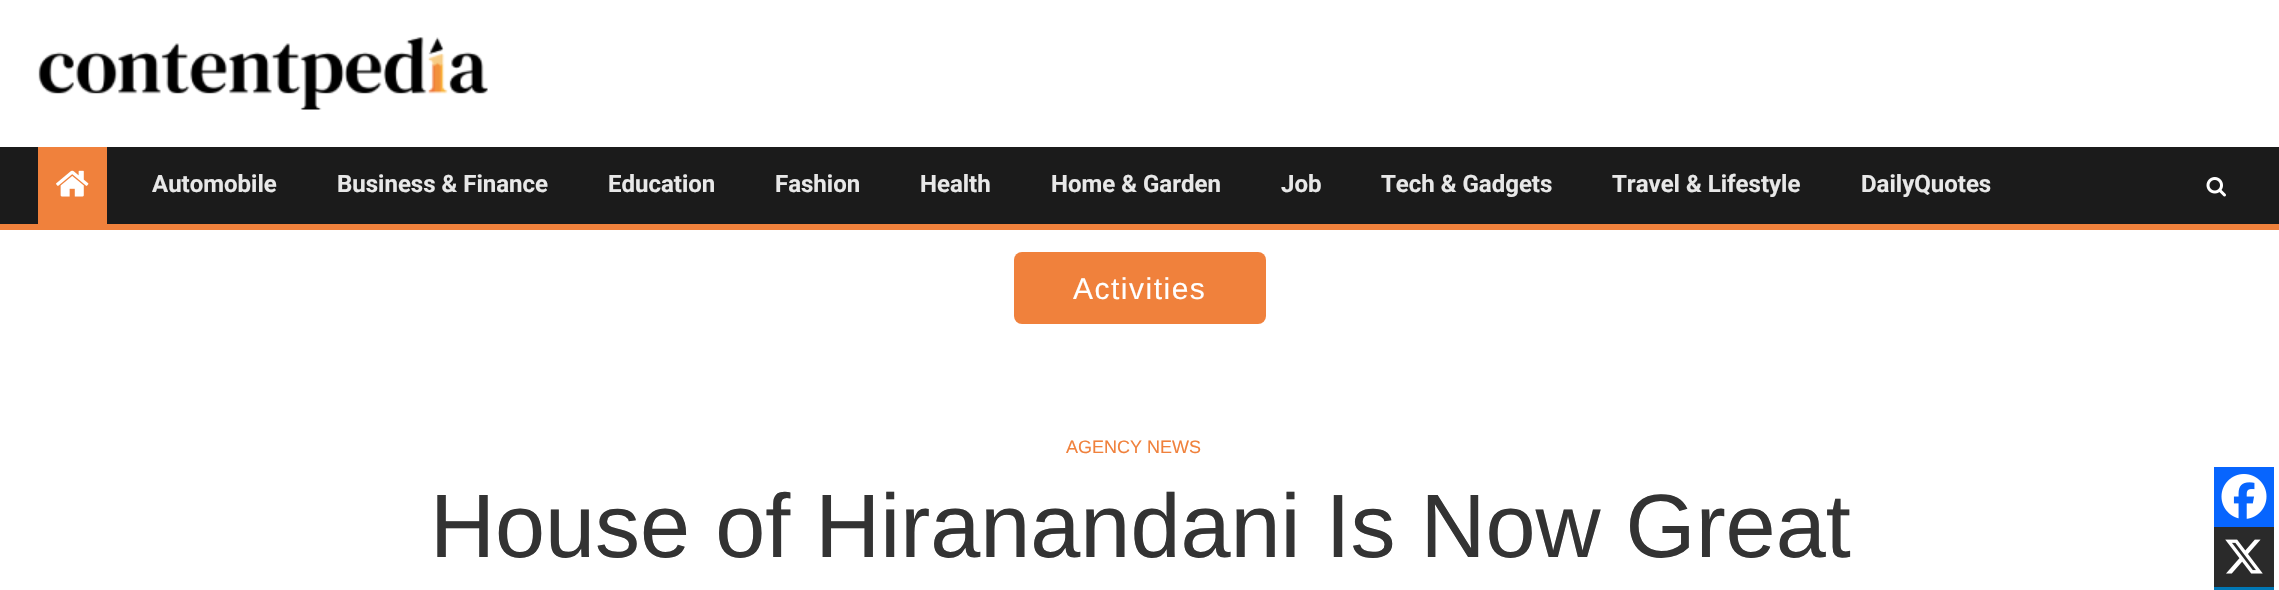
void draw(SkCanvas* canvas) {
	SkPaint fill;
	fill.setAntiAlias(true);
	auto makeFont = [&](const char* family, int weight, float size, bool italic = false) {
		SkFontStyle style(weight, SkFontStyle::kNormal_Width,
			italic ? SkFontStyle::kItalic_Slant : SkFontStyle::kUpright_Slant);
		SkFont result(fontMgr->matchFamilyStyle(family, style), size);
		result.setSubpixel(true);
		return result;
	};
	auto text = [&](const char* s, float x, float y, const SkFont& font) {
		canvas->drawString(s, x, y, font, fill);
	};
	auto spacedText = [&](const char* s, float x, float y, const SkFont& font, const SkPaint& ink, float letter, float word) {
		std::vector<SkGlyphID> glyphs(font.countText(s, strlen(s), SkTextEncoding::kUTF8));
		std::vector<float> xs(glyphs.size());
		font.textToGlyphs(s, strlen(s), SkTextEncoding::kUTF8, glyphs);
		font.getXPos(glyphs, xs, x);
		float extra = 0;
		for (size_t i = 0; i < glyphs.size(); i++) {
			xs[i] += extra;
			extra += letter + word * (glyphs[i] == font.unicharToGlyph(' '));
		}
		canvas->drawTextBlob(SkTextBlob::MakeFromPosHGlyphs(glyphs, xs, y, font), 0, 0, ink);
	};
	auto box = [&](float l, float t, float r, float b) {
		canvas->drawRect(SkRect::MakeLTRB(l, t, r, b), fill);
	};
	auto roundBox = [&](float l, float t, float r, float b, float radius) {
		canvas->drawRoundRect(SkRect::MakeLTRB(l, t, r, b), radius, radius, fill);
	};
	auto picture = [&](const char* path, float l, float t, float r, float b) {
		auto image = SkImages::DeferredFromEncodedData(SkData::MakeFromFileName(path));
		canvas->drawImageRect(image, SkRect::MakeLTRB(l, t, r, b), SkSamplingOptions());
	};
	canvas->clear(0xFFFFFFFF);
	picture("image0.png", 38, 37, 488, 110);
	fill.setColor(0xFF1B1B1B);
	box(0, 147, 2279, 224);
	fill.setColor(0xFFF0813C);
	box(0, 224, 2279, 230);
	box(38, 147, 107, 224);
	picture("image1.png", 56, 170, 89, 197);
	picture("image2.png", 2206, 177, 2226, 197);
	roundBox(1014, 252, 1266, 324, 8);
	fill.setColor(0xFF0765FE);
	box(2214, 467, 2274, 527);
	picture("image3.png", 2221, 474, 2267, 519);
	fill.setColor(0xFF2A2A2A);
	box(2214, 527, 2274, 587);
	picture("image4.png", 2225, 539, 2263, 574);
	fill.setColor(0xFF0077B5);
	box(2214, 587, 2274, 590);
	auto font1 = makeFont("Roboto", 700, 24);
	fill.setColor(0xFFE8E8E8);
	text("Automobile", 152, 192, font1);
	text("Business & Finance", 337, 192, font1);
	text("Education", 608, 192, font1);
	text("Fashion", 775, 192, font1);
	text("Health", 920, 192, font1);
	text("Home & Garden", 1051, 192, font1);
	text("Job", 1281, 192, font1);
	text("Tech & Gadgets", 1381, 192, font1);
	text("Travel & Lifestyle", 1612, 192, font1);
	text("DailyQuotes", 1861, 192, font1);
	auto font2 = makeFont("Liberation Sans", 400, 30);
	fill.setColor(0xFFFFFFFF);
	spacedText("Activities", 1073, 299, font2, fill, 1.5f, 0);
	auto font3 = makeFont("Liberation Sans", 400, 18);
	fill.setColor(0xFFF0813C);
	text("AGENCY NEWS", 1066, 453, font3);
	auto font4 = makeFont("Liberation Sans", 400, 90);
	fill.setColor(0xFF333333);
	text("House of Hiranandani Is Now Great", 430, 557, font4);
}
